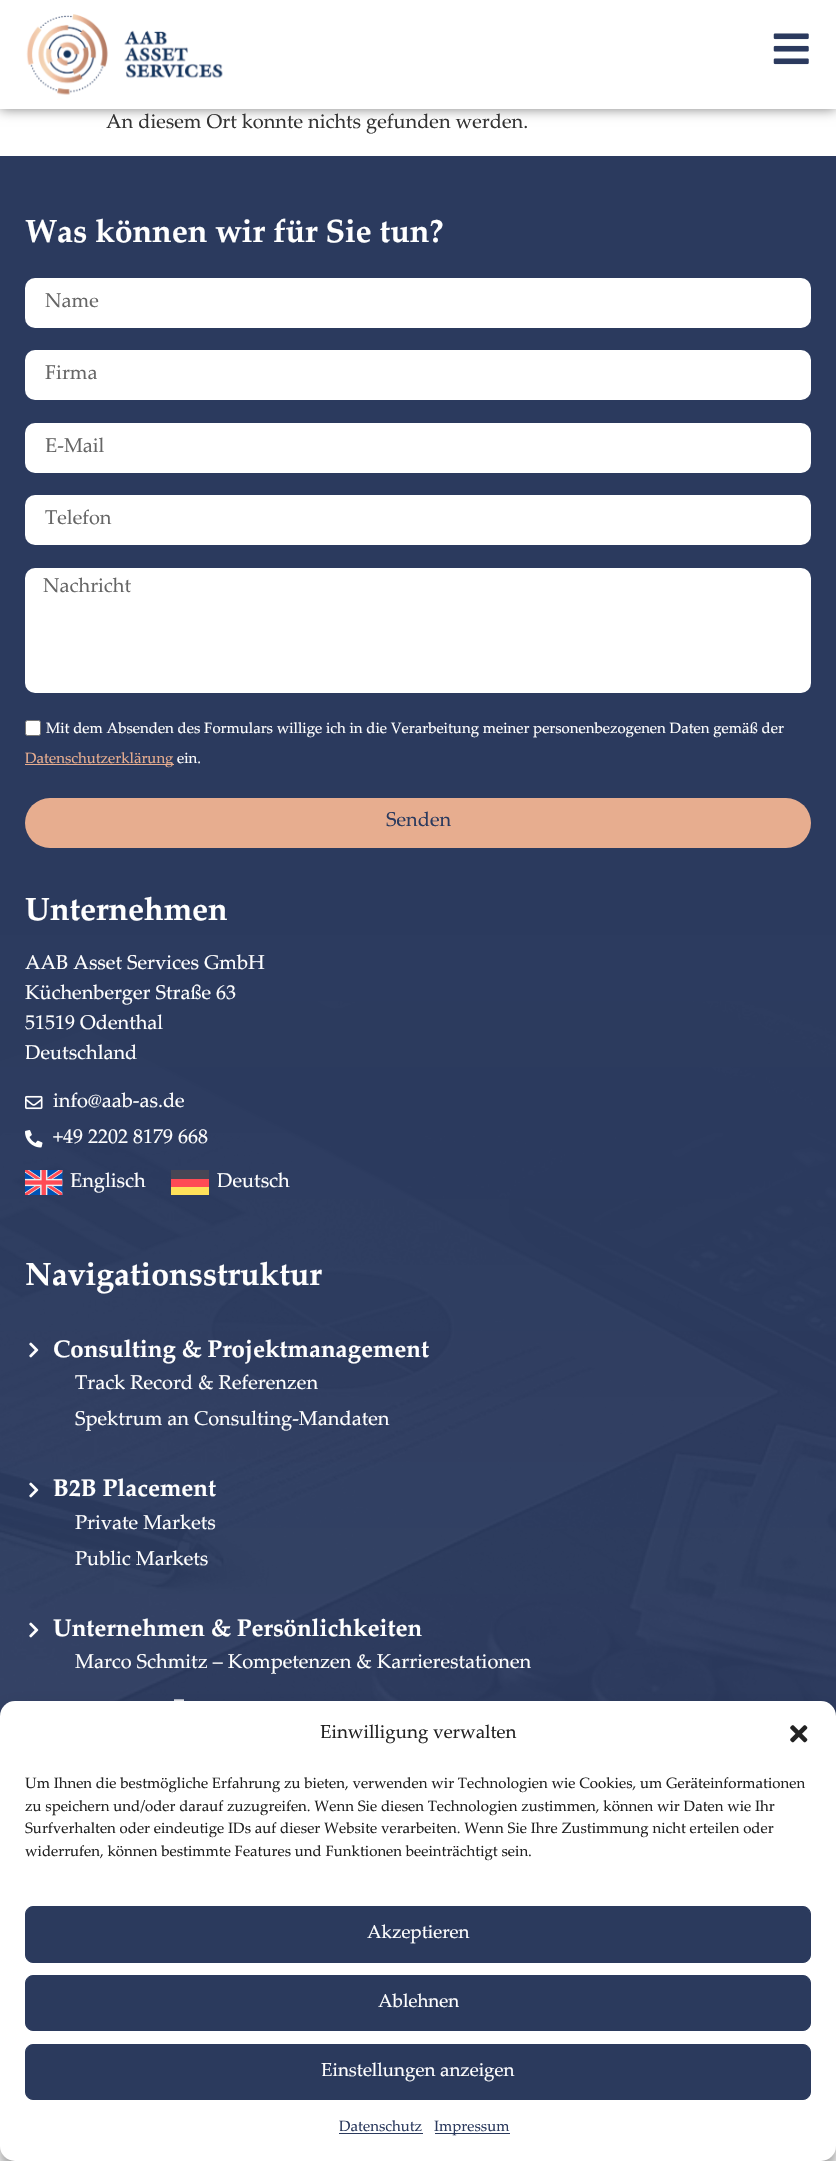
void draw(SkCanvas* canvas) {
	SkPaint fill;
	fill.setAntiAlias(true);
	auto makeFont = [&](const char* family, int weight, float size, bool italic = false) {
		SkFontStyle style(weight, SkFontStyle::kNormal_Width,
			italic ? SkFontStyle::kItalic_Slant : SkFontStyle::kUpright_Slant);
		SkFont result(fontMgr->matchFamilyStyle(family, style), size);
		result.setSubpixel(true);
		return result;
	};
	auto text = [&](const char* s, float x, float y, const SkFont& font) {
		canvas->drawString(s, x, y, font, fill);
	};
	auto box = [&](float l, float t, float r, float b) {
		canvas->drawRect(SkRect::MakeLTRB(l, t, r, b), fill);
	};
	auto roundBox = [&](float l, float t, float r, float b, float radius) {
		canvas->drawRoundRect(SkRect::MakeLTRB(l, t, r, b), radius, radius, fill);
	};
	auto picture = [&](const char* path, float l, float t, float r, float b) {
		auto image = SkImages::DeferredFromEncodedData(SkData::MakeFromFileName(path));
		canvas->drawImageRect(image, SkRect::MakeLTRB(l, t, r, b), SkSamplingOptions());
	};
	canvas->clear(0xFFFFFFFF);
	fill.setColor(0x80000000);
	fill.setMaskFilter(SkMaskFilter::MakeBlur(kNormal_SkBlurStyle, 6));
	canvas->drawRect(SkRect::MakeLTRB(0, 0, 836, 109), fill);
	fill.setMaskFilter(nullptr);
	fill.setColor(0xFFFFFFFF);
	box(0, 0, 836, 109);
	picture("image0.png", 26, 14, 223, 95);
	picture("image1.png", 773, 33, 809, 65);
	picture("image2.png", 0, 999, 836, 1716);
	{
		const SkColor colors[] = {0xFF2B3A5E, 0xF02B3A5E};
		const float stops[] = {0.43f, 1};
		const SkPoint ends[] = {{418, 156}, {418, 1891}};
		fill.setShader(SkGradientShader::MakeLinear(ends, colors, stops, 2, SkTileMode::kClamp));
		fill.setAlpha(255);
	}
	box(0, 156, 836, 1716);
	fill.setShader(nullptr);
	fill.setColor(0xFFFFFFFF);
	roundBox(25, 278, 811, 328, 10);
	roundBox(25, 350, 811, 400, 10);
	roundBox(25, 423, 811, 473, 10);
	roundBox(25, 495, 811, 545, 10);
	roundBox(25, 568, 811, 693, 10);
	canvas->drawRoundRect(SkRect::MakeLTRB(25.5f, 720.5f, 40.5f, 735.5f), 2, 2, fill);
	fill.setStyle(SkPaint::kStroke_Style);
	fill.setStrokeWidth(1);
	fill.setColor(0xFF767676);
	canvas->drawRoundRect(SkRect::MakeLTRB(25.5f, 720.5f, 40.5f, 735.5f), 2, 2, fill);
	fill.setStyle(SkPaint::kFill_Style);
	fill.setColor(0xFFE7AD8F);
	box(25, 764, 174, 765);
	roundBox(25, 798, 811, 848, 25);
	picture("image3.png", 25, 1095, 43, 1110);
	picture("image4.png", 25, 1130, 43, 1148);
	picture("image5.png", 25, 1170, 63, 1195);
	fill.setColor(0xFF464655);
	box(171, 1170, 209, 1179);
	fill.setColor(0xFFFF4B55);
	box(171, 1179, 209, 1187);
	fill.setColor(0xFFFFE15A);
	box(171, 1187, 209, 1195);
	picture("image6.png", 29, 1342, 39, 1358);
	picture("image7.png", 29, 1482, 39, 1498);
	picture("image8.png", 29, 1622, 39, 1638);
	fill.setColor(0x3B000000);
	fill.setMaskFilter(SkMaskFilter::MakeBlur(kNormal_SkBlurStyle, 4));
	canvas->drawRoundRect(SkRect::MakeLTRB(0, 1709, 836, 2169), 15, 15, fill);
	fill.setMaskFilter(nullptr);
	fill.setColor(0x30000000);
	fill.setMaskFilter(SkMaskFilter::MakeBlur(kNormal_SkBlurStyle, 12.5f));
	canvas->drawRoundRect(SkRect::MakeLTRB(0, 1714, 836, 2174), 15, 15, fill);
	fill.setMaskFilter(nullptr);
	fill.setColor(0xFFFFFFFF);
	roundBox(0, 1701, 836, 2161, 15);
	picture("image9.png", 790, 1725, 808, 1743);
	fill.setColor(0xFF2B3A5D);
	canvas->drawRoundRect(SkRect::MakeLTRB(25.5f, 1906.5f, 810.5f, 1962.5f), 7.5f, 7.5f, fill);
	fill.setStyle(SkPaint::kStroke_Style);
	canvas->drawRoundRect(SkRect::MakeLTRB(25.5f, 1906.5f, 810.5f, 1962.5f), 7.5f, 7.5f, fill);
	fill.setStyle(SkPaint::kFill_Style);
	canvas->drawRoundRect(SkRect::MakeLTRB(25.5f, 1975.5f, 810.5f, 2030.5f), 7.5f, 7.5f, fill);
	fill.setStyle(SkPaint::kStroke_Style);
	canvas->drawRoundRect(SkRect::MakeLTRB(25.5f, 1975.5f, 810.5f, 2030.5f), 7.5f, 7.5f, fill);
	fill.setStyle(SkPaint::kFill_Style);
	canvas->drawRoundRect(SkRect::MakeLTRB(25.5f, 2044.5f, 810.5f, 2099.5f), 7.5f, 7.5f, fill);
	fill.setStyle(SkPaint::kStroke_Style);
	canvas->drawRoundRect(SkRect::MakeLTRB(25.5f, 2044.5f, 810.5f, 2099.5f), 7.5f, 7.5f, fill);
	fill.setStyle(SkPaint::kFill_Style);
	box(339, 2133, 423, 2134);
	box(435, 2133, 510, 2134);
	auto font1 = makeFont("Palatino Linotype", 400, 20);
	fill.setColor(0xFF333333);
	text("An diesem Ort konnte nichts gefunden werden.", 106, 128, font1);
	auto font2 = makeFont("Palatino Linotype", 700, 32);
	fill.setColor(0xFFFFFFFF);
	text("Was können wir für Sie tun?", 25, 242, font2);
	fill.setColor(0xFF666666);
	text("Name", 45, 307, font1);
	text("Firma", 45, 379, font1);
	text("E-Mail", 45, 452, font1);
	text("Telefon", 45, 524, font1);
	text("Nachricht", 43, 592, font1);
	auto font3 = makeFont("Palatino Linotype", 400, 15);
	fill.setColor(0xFFFFFFFF);
	text("Mit dem Absenden des Formulars willige ich in die Verarbeitung meiner personenbezogenen Daten gemäß der", 46, 733, font3);
	fill.setColor(0xFFE7AD8F);
	text("Datenschutzerklärung", 25, 763, font3);
	fill.setColor(0xFFFFFFFF);
	text("ein.", 177, 763, font3);
	fill.setColor(0xFF2B3A5E);
	text("Senden", 386, 826, font1);
	fill.setColor(0xFFFFFFFF);
	text("Unternehmen", 25, 920, font2);
	text("AAB Asset Services GmbH", 25, 969, font1);
	text("Küchenberger Straße 63", 25, 999, font1);
	text("51519 Odenthal", 25, 1029, font1);
	text("Deutschland", 25, 1059, font1);
	text("info@aab-as.de", 53, 1107, font1);
	text("+49 2202 8179 668", 53, 1143, font1);
	text("Englisch", 70, 1187, font1);
	text("Deutsch", 217, 1187, font1);
	text("Navigationsstruktur", 25, 1285, font2);
	auto font4 = makeFont("Palatino Linotype", 700, 24);
	text("Consulting & Projektmanagement", 53, 1357, font4);
	text("Track Record & Referenzen", 75, 1389, font1);
	text("Spektrum an Consulting-Mandaten", 75, 1425, font1);
	text("B2B Placement", 53, 1496, font4);
	text("Private Markets", 75, 1529, font1);
	text("Public Markets", 75, 1565, font1);
	text("Unternehmen & Persönlichkeiten", 53, 1636, font4);
	text("Marco Schmitz – Kompetenzen & Karrierestationen", 75, 1668, font1);
	text("–", 174, 1705, font1);
	auto font5 = makeFont("Palatino Linotype", 400, 18.75f);
	fill.setColor(0xFF222222);
	text("Einwilligung verwalten", 320, 1738, font5);
	text("Um Ihnen die bestmögliche Erfahrung zu bieten, verwenden wir Technologien wie Cookies, um Geräteinformationen", 25, 1788, font3);
	text("zu speichern und/oder darauf zuzugreifen. Wenn Sie diesen Technologien zustimmen, können wir Daten wie Ihr", 25, 1811, font3);
	text("Surfverhalten oder eindeutige IDs auf dieser Website verarbeiten. Wenn Sie Ihre Zustimmung nicht erteilen oder", 25, 1833, font3);
	text("widerrufen, können bestimmte Features und Funktionen beeinträchtigt sein.", 25, 1856, font3);
	fill.setColor(0xFFFFFFFF);
	text("Akzeptieren", 367, 1938, font5);
	text("Ablehnen", 378, 2007, font5);
	text("Einstellungen anzeigen", 321, 2076, font5);
	fill.setColor(0xFF2B3A5E);
	text("Datenschutz", 339, 2131, font3);
	text("Impressum", 434, 2131, font3);
}
